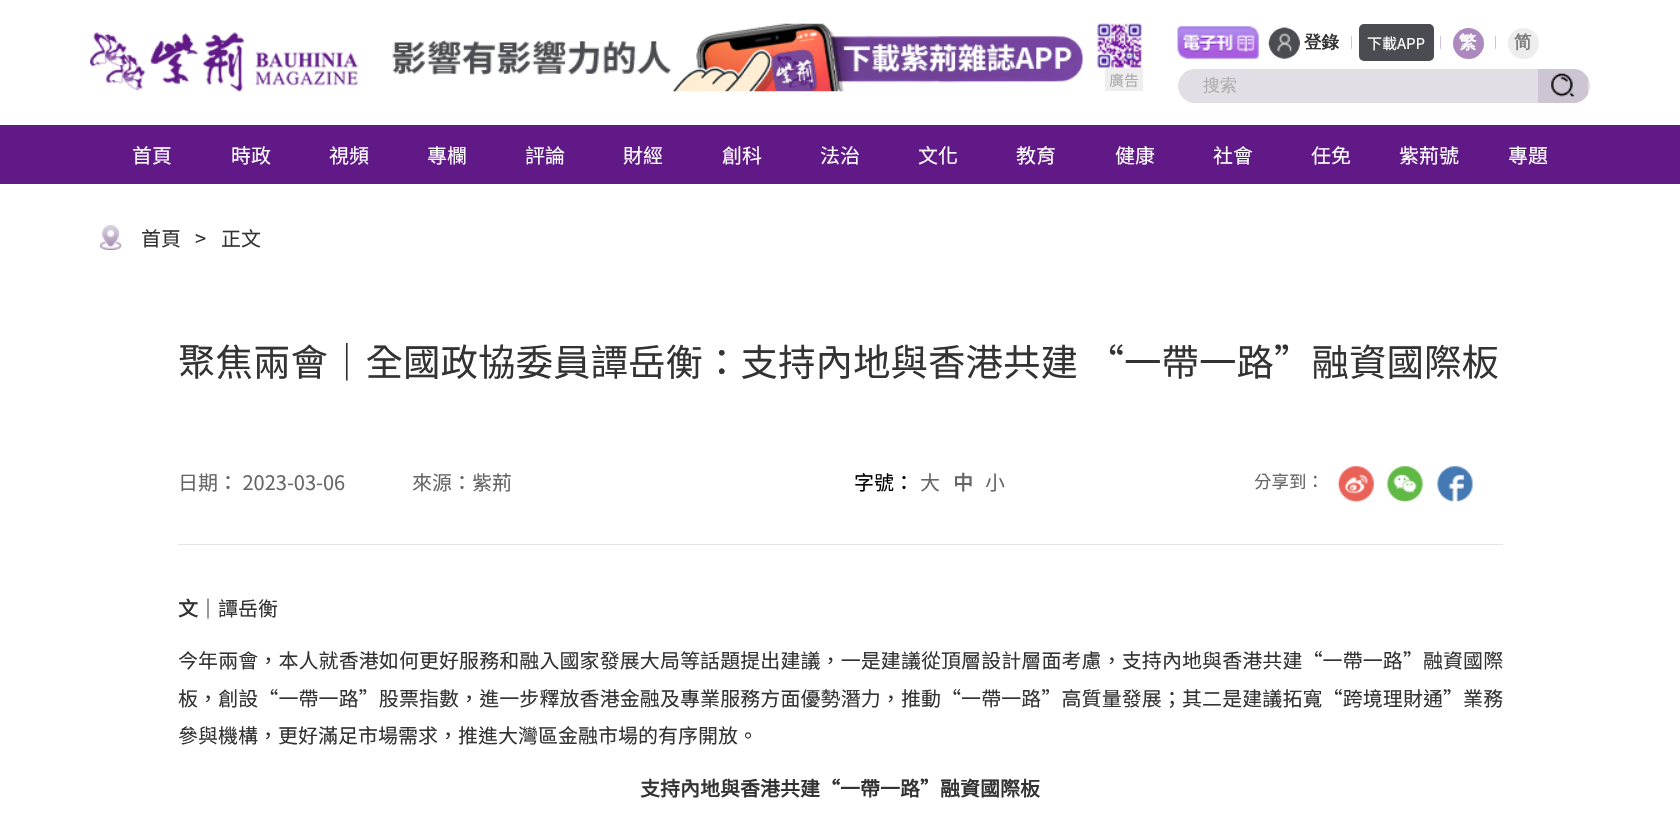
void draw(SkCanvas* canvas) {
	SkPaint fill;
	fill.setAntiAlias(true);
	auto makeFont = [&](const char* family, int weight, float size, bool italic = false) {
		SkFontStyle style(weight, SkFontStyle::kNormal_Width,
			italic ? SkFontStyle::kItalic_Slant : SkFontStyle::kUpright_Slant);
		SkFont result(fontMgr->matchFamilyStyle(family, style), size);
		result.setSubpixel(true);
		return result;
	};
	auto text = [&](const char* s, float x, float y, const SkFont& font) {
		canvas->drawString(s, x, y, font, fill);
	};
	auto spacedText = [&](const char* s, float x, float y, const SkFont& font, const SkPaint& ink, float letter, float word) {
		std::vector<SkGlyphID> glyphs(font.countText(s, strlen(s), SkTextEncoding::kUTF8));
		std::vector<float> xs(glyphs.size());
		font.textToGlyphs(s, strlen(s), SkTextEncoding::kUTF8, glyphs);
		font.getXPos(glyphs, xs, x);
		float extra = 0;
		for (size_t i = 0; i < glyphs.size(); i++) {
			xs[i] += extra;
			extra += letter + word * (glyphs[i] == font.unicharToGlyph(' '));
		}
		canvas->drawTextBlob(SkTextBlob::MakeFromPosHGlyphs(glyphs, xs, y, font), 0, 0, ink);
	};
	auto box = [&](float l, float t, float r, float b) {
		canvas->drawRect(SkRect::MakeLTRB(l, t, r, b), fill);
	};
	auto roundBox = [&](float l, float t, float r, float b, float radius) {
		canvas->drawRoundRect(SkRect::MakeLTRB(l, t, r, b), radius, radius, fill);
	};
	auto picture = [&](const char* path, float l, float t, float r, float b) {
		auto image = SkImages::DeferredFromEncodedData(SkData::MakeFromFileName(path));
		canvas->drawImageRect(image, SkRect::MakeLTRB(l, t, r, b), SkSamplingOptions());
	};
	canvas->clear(0xFFFFFFFF);
	picture("image0.png", 90, 32, 358, 92);
	picture("image1.png", 392, 23, 1142, 92);
	fill.setColor(0xFFEEEEEE);
	box(1105, 68, 1143, 91);
	picture("image2.png", 1177, 26, 1259, 59);
	picture("image3.png", 1268, 27, 1300, 59);
	fill.setColor(0xFFD0C2D7);
	box(1351, 36, 1352, 49);
	fill.setColor(0xFF4B4C51);
	roundBox(1359, 24, 1434, 61, 5);
	fill.setColor(0xFFD0C2D7);
	box(1440, 36, 1441, 49);
	fill.setColor(0xFFAC8ABE);
	canvas->drawCircle(1468.5f, 43.5f, 15.5f, fill);
	fill.setColor(0xFFD0C2D7);
	box(1495, 36, 1496, 49);
	fill.setColor(0xFFEDEDED);
	canvas->drawCircle(1523.5f, 43.5f, 15.5f, fill);
	fill.setColor(0xFFE3DEE5);
	roundBox(1178, 69, 1590, 103, 17);
	canvas->save();
	canvas->clipPath(SkPathBuilder().moveTo(1195, 69).lineTo(1573, 69).cubicTo(1582.5f, 69, 1590, 76.5f, 1590, 86).cubicTo(1590, 95.5f, 1582.5f, 103, 1573, 103).lineTo(1195, 103).cubicTo(1185.5f, 103, 1178, 95.5f, 1178, 86).cubicTo(1178, 76.5f, 1185.5f, 69, 1195, 69).close().detach(), true);
	fill.setColor(0xFFCEC5D3);
	box(1538, 69, 1588, 103);
	canvas->restore();
	picture("image4.png", 1551, 73, 1574, 97);
	fill.setColor(0xFF601986);
	box(0, 125, 1680, 184);
	picture("image5.png", 100, 225, 122, 250);
	fill.setColor(0xFFE5E5E5);
	box(178, 544, 1503, 545);
	picture("image6.png", 1338, 466, 1374, 502);
	picture("image7.png", 1387, 466, 1423, 502);
	picture("image8.png", 1437, 466, 1473, 502);
	auto font1 = makeFont("Noto Sans TC", 400, 15);
	fill.setColor(0xFFACACAC);
	text("廣告", 1109, 86, font1);
	auto font2 = makeFont("WenQuanYi Zen Hei", 700, 17.5f);
	fill.setColor(0xFF333333);
	text("登錄", 1304, 48, font2);
	fill.setColor(0xFFFFFFFF);
	text("下載APP", 1367, 49, font1);
	text("繁", 1459, 48, font2);
	fill.setColor(0xFF7E7E7E);
	text("简", 1514, 48, font2);
	auto font3 = makeFont("WenQuanYi Zen Hei", 500, 17);
	fill.setColor(0xFFACACAC);
	text("搜索", 1203, 91, font3);
	auto font4 = makeFont("Noto Sans TC", 400, 20);
	fill.setColor(0xFFFFFFFF);
	text("首頁", 132, 163, font4);
	text("時政", 231, 163, font4);
	text("視頻", 329, 163, font4);
	text("專欄", 427, 163, font4);
	text("評論", 525, 163, font4);
	text("財經", 623, 163, font4);
	text("創科", 722, 163, font4);
	text("法治", 820, 163, font4);
	text("文化", 918, 163, font4);
	text("教育", 1016, 163, font4);
	text("健康", 1115, 163, font4);
	text("社會", 1213, 163, font4);
	text("任免", 1311, 163, font4);
	text("紫荊號", 1399, 163, font4);
	text("專題", 1508, 163, font4);
	fill.setColor(0xFF333333);
	text("首頁", 141, 246, font4);
	text(">", 195, 246, font4);
	text("正文", 221, 246, font4);
	auto font5 = makeFont("Noto Sans TC", 400, 37.5f);
	text("聚焦兩會｜全國政協委員譚岳衡：支持內地與香港共建 “一帶一路”融資國際板", 178, 376, font5);
	fill.setColor(0xFF666666);
	text("日期： 2023-03-06", 178, 490, font4);
	text("來源：紫荊", 412, 490, font4);
	fill.setColor(0xFF000000);
	text("字號：", 854, 490, font4);
	fill.setColor(0xFF666666);
	text("大", 920, 490, font4);
	auto font6 = makeFont("Noto Sans TC", 700, 20);
	text("中", 953, 490, font6);
	text("小", 985, 490, font4);
	auto font7 = makeFont("Noto Sans TC", 400, 17.5f);
	text("分享到：", 1254, 488, font7);
	fill.setColor(0xFF333333);
	text("文", 178, 616, font6);
	text("｜譚岳衡", 198, 616, font4);
	spacedText("今年兩會，本人就香港如何更好服務和融入國家發展大局等話題提出建議，一是建議從頂層設計層面考慮，支持內地與香港共建“一帶一路”融資國際", 178, 668, font4, fill, 0.08f, 0);
	spacedText("板，創設“一帶一路”股票指數，進一步釋放香港金融及專業服務方面優勢潛力，推動“一帶一路”高質量發展；其二是建議拓寬“跨境理財通”業務", 178, 706, font4, fill, 0.08f, 0);
	text("參與機構，更好滿足市場需求，推進大灣區金融市場的有序開放。", 178, 743, font4);
	text("支持內地與香港共建“一帶一路”融資國際板", 640, 796, font6);
}
